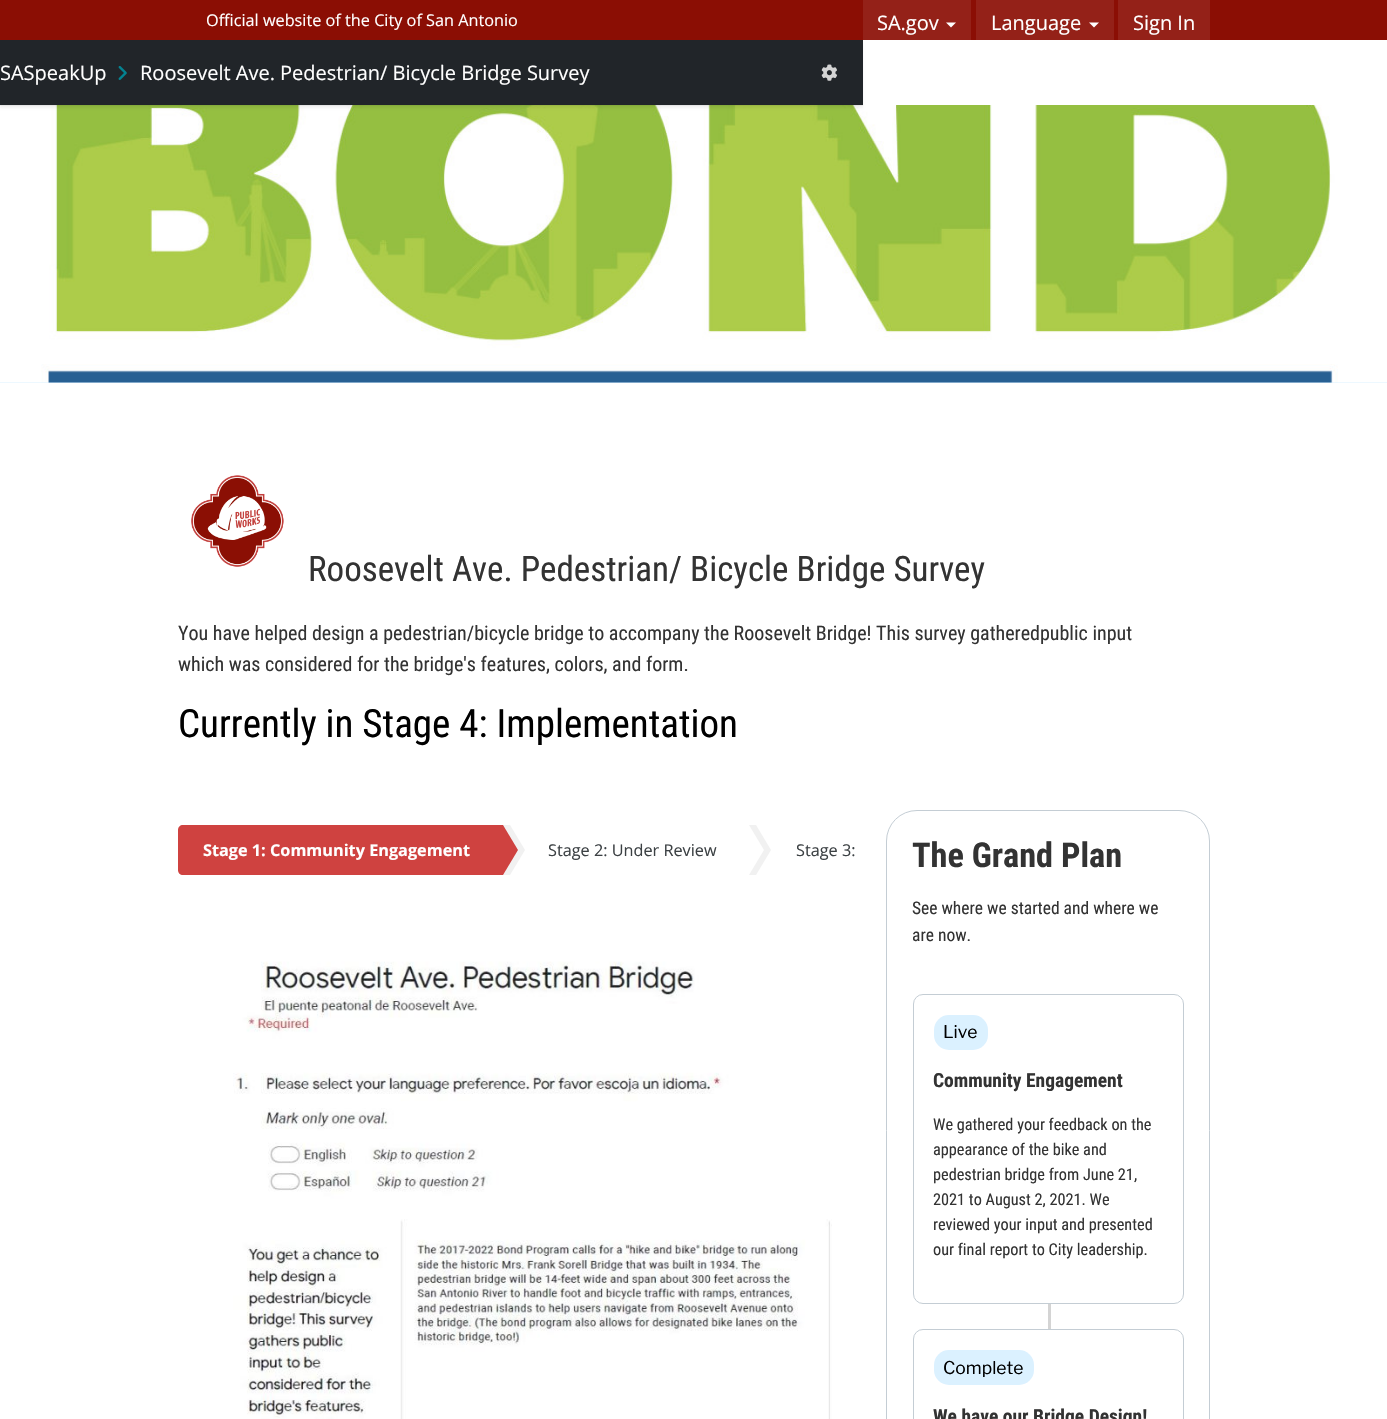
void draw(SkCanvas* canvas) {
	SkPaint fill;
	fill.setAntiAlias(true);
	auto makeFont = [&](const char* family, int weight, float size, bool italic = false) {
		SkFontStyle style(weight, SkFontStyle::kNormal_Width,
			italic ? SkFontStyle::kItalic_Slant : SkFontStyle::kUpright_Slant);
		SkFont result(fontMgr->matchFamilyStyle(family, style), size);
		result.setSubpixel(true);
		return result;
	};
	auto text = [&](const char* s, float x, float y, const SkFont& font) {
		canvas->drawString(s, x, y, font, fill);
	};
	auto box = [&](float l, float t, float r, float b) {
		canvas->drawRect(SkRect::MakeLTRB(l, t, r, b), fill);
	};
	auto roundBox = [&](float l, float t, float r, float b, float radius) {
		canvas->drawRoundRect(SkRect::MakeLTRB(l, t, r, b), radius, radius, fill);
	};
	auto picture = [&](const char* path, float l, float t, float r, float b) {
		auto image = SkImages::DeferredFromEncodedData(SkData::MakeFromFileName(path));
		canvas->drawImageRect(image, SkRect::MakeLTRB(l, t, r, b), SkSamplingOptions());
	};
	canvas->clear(0xFFFFFFFF);
	fill.setColor(0xFF8B0E04);
	box(0, 0, 1387, 40);
	fill.setColor(0xFF942118);
	box(976, 0, 1114, 40);
	box(863, 0, 971, 40);
	box(1118, 0, 1210, 40);
	fill.setColor(0xFFFFFFFF);
	canvas->drawPath(SkPathBuilder().moveTo(946, 22.5f).lineTo(956, 22.5f).lineTo(951, 27.5f).close().detach(), fill);
	canvas->drawPath(SkPathBuilder().moveTo(1089, 22.5f).lineTo(1099, 22.5f).lineTo(1094, 27.5f).close().detach(), fill);
	fill.setColor(0xFFDBF1FF);
	box(0, 382, 1387, 383);
	picture("image2.png", 0, 105, 1387, 383);
	fill.setColor(0x0D000000);
	canvas->drawPath(SkPathBuilder().moveTo(0, 105).lineTo(0, 106).lineTo(863, 106).lineTo(863, 41).lineTo(862, 41).lineTo(862, 105).close().detach(), fill);
	fill.setMaskFilter(SkMaskFilter::MakeBlur(kNormal_SkBlurStyle, 1));
	canvas->drawRect(SkRect::MakeLTRB(0, 43, 863, 108), fill);
	fill.setMaskFilter(nullptr);
	fill.setColor(0xFF212529);
	box(0, 40, 863, 105);
	picture("image0.png", 118, 66, 127, 80);
	picture("image1.png", 821, 64, 837, 81);
	picture("image3.png", 191, 475, 284, 567);
	fill.setColor(0xFFCF4240);
	canvas->drawPath(SkPathBuilder().moveTo(183, 825).lineTo(480, 825).lineTo(480, 875).lineTo(183, 875).cubicTo(180, 875, 178, 873, 178, 870).lineTo(178, 830).cubicTo(178, 827, 180, 825, 183, 825).close().detach(), fill);
	fill.setColor(0xFFF1F1F1);
	canvas->drawPath(SkPathBuilder().moveTo(488, 875).lineTo(510, 875).lineTo(525, 850).lineTo(510, 825).lineTo(488, 825).close().detach(), fill);
	fill.setColor(0xFFCF4240);
	canvas->drawPath(SkPathBuilder().moveTo(480, 875).lineTo(503, 875).lineTo(518, 850).lineTo(503, 825).lineTo(480, 825).close().detach(), fill);
	fill.setColor(0xFFF1F1F1);
	canvas->drawPath(SkPathBuilder().moveTo(734, 875).lineTo(756, 875).lineTo(771, 850).lineTo(756, 825).lineTo(734, 825).close().detach(), fill);
	fill.setColor(0xFFFFFFFF);
	canvas->drawPath(SkPathBuilder().moveTo(726, 875).lineTo(749, 875).lineTo(764, 850).lineTo(749, 825).lineTo(726, 825).close().detach(), fill);
	picture("image4.png", 233, 961, 832, 1419);
	fill.setStyle(SkPaint::kStroke_Style);
	fill.setStrokeWidth(1);
	fill.setColor(0xFFC4CDD4);
	canvas->drawRoundRect(SkRect::MakeLTRB(886.5f, 810.5f, 1209.5f, 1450.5f), 30.5f, 30.5f, fill);
	canvas->drawRoundRect(SkRect::MakeLTRB(913.5f, 994.5f, 1183.5f, 1303.5f), 9.5f, 9.5f, fill);
	fill.setStyle(SkPaint::kFill_Style);
	fill.setColor(0xFFDBF1FF);
	roundBox(934, 1015, 988, 1050, 15);
	fill.setColor(0xFFD4D4D4);
	box(1048, 1304, 1051, 1329);
	fill.setStyle(SkPaint::kStroke_Style);
	fill.setColor(0xFFC4CDD4);
	canvas->drawRoundRect(SkRect::MakeLTRB(913.5f, 1329.5f, 1183.5f, 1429.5f), 9.5f, 9.5f, fill);
	fill.setStyle(SkPaint::kFill_Style);
	fill.setColor(0xFFDBF1FF);
	roundBox(934, 1350, 1034, 1385, 15);
	auto font1 = makeFont("Open Sans", 400, 16.25f);
	fill.setColor(0xFFFFFFFF);
	text("Official website of the City of San Antonio", 206, 26, font1);
	auto font2 = makeFont("Open Sans", 400, 20);
	text("SA.gov", 877, 30, font2);
	text("Language", 991, 30, font2);
	text("Sign In", 1133, 30, font2);
	text("SASpeakUp", 0, 80, font2);
	text("Roosevelt Ave. Pedestrian/ Bicycle Bridge Survey", 140, 80, font2);
	auto font3 = makeFont("Roboto Condensed", 400, 35);
	fill.setColor(0xFF333333);
	text("Roosevelt Ave. Pedestrian/ Bicycle Bridge Survey", 308, 581, font3);
	auto font4 = makeFont("Roboto Condensed", 400, 20);
	text("You have helped design a pedestrian/bicycle bridge to accompany the Roosevelt Bridge! This survey gatheredpublic input", 178, 640, font4);
	text("which was considered for the bridge's features, colors, and form.", 178, 671, font4);
	auto font5 = makeFont("Roboto Condensed", 400, 39);
	fill.setColor(0xFF000000);
	text("Currently in Stage 4: Implementation", 178, 737, font5);
	auto font6 = makeFont("Open Sans", 700, 16.25f);
	fill.setColor(0xFFFFFFFF);
	text("Stage 1: Community Engagement", 203, 856, font6);
	fill.setColor(0xFF3C4144);
	text("Stage 2: Under Review", 548, 856, font1);
	text("Stage 3:", 796, 856, font1);
	auto font7 = makeFont("Roboto Condensed", 700, 34.25f);
	fill.setColor(0xFF333333);
	text("The Grand Plan", 912, 867, font7);
	auto font8 = makeFont("Roboto Condensed", 400, 17.5f);
	text("See where we started and where we", 912, 914, font8);
	text("are now.", 912, 941, font8);
	auto font9 = makeFont("Libre Franklin", 400, 17.5f);
	fill.setColor(0xFF000000);
	text("Live", 943, 1038, font9);
	auto font10 = makeFont("Roboto Condensed", 700, 19.5f);
	fill.setColor(0xFF333333);
	text("Community Engagement", 933, 1087, font10);
	auto font11 = makeFont("Roboto Condensed", 400, 16.25f);
	text("We gathered your feedback on the", 933, 1130, font11);
	text("appearance of the bike and", 933, 1155, font11);
	text("pedestrian bridge from June 21,", 933, 1180, font11);
	text("2021 to August 2, 2021. We", 933, 1205, font11);
	text("reviewed your input and presented", 933, 1230, font11);
	text("our final report to City leadership.", 933, 1255, font11);
	fill.setColor(0xFF000000);
	text("Complete", 943, 1374, font9);
	fill.setColor(0xFF333333);
	text("We have our Bridge Design!", 933, 1423, font10);
}
